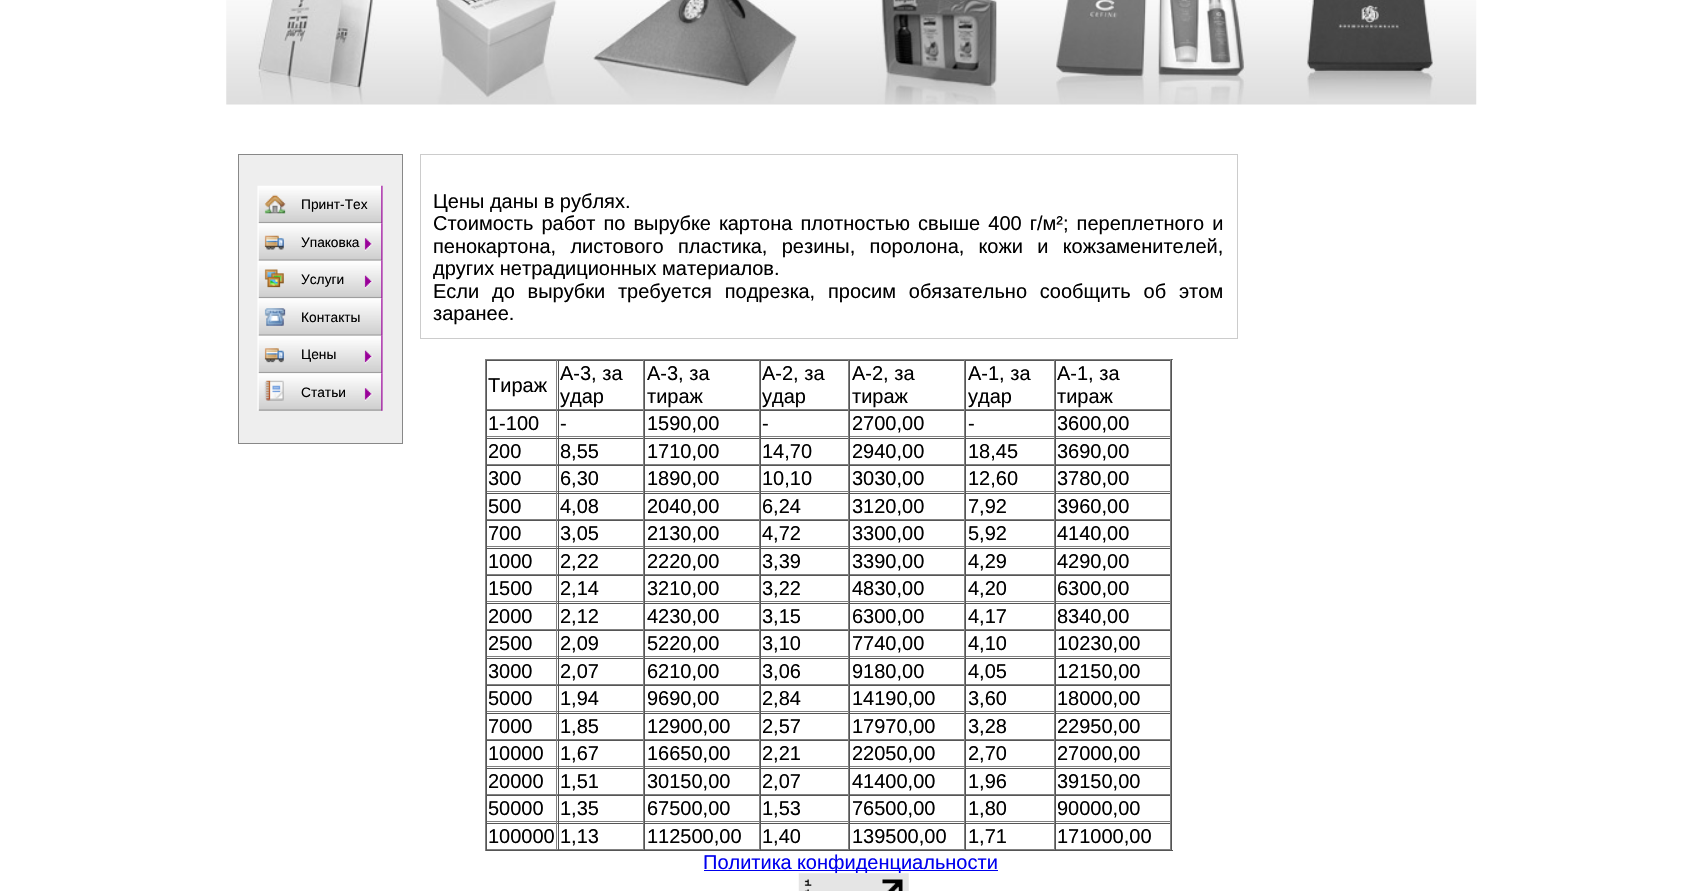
void draw(SkCanvas* canvas) {
	SkPaint fill;
	fill.setAntiAlias(true);
	auto makeFont = [&](const char* family, int weight, float size, bool italic = false) {
		SkFontStyle style(weight, SkFontStyle::kNormal_Width,
			italic ? SkFontStyle::kItalic_Slant : SkFontStyle::kUpright_Slant);
		SkFont result(fontMgr->matchFamilyStyle(family, style), size);
		result.setSubpixel(true);
		return result;
	};
	auto text = [&](const char* s, float x, float y, const SkFont& font) {
		canvas->drawString(s, x, y, font, fill);
	};
	auto spacedText = [&](const char* s, float x, float y, const SkFont& font, const SkPaint& ink, float letter, float word) {
		std::vector<SkGlyphID> glyphs(font.countText(s, strlen(s), SkTextEncoding::kUTF8));
		std::vector<float> xs(glyphs.size());
		font.textToGlyphs(s, strlen(s), SkTextEncoding::kUTF8, glyphs);
		font.getXPos(glyphs, xs, x);
		float extra = 0;
		for (size_t i = 0; i < glyphs.size(); i++) {
			xs[i] += extra;
			extra += letter + word * (glyphs[i] == font.unicharToGlyph(' '));
		}
		canvas->drawTextBlob(SkTextBlob::MakeFromPosHGlyphs(glyphs, xs, y, font), 0, 0, ink);
	};
	auto box = [&](float l, float t, float r, float b) {
		canvas->drawRect(SkRect::MakeLTRB(l, t, r, b), fill);
	};
	auto picture = [&](const char* path, float l, float t, float r, float b) {
		auto image = SkImages::DeferredFromEncodedData(SkData::MakeFromFileName(path));
		canvas->drawImageRect(image, SkRect::MakeLTRB(l, t, r, b), SkSamplingOptions());
	};
	canvas->clear(0xFFFFFFFF);
	picture("image0.png", 226, 0, 1477, 105);
	fill.setColor(0xFFEEEEEE);
	canvas->drawRect(SkRect::MakeLTRB(238.5f, 154.5f, 402.5f, 443.5f), fill);
	fill.setStyle(SkPaint::kStroke_Style);
	fill.setStrokeWidth(1);
	fill.setColor(0xFF888888);
	canvas->drawRect(SkRect::MakeLTRB(238.5f, 154.5f, 402.5f, 443.5f), fill);
	picture("image1.png", 257, 185, 383, 224);
	picture("image2.png", 257, 223, 383, 261);
	picture("image3.png", 257, 260, 383, 299);
	picture("image4.png", 257, 298, 383, 336);
	picture("image5.png", 257, 335, 383, 374);
	picture("image6.png", 257, 373, 383, 411);
	fill.setColor(0xFFCCCCCC);
	canvas->drawRect(SkRect::MakeLTRB(420.5f, 154.5f, 1237.5f, 338.5f), fill);
	fill.setStyle(SkPaint::kFill_Style);
	fill.setColor(0xFF808080);
	box(485, 359, 1173, 360);
	fill.setColor(0xFF555555);
	box(1171, 359, 1172, 851);
	box(485, 850, 1173, 851);
	fill.setColor(0xFF808080);
	box(485, 359, 486, 851);
	fill.setColor(0xFF555555);
	box(486, 360, 1171, 361);
	fill.setColor(0xFF808080);
	box(556, 360, 557, 410);
	box(486, 409, 558, 410);
	fill.setColor(0xFF555555);
	box(486, 360, 487, 410);
	fill.setColor(0xFF808080);
	box(643, 360, 644, 410);
	box(558, 409, 644, 410);
	fill.setColor(0xFF555555);
	box(558, 360, 559, 410);
	fill.setColor(0xFF808080);
	box(759, 360, 760, 410);
	box(644, 409, 760, 410);
	fill.setColor(0xFF555555);
	box(644, 360, 645, 410);
	fill.setColor(0xFF808080);
	box(848, 360, 849, 410);
	box(760, 409, 849, 410);
	fill.setColor(0xFF555555);
	box(760, 360, 761, 410);
	fill.setColor(0xFF808080);
	box(964, 360, 965, 410);
	box(849, 409, 965, 410);
	fill.setColor(0xFF555555);
	box(849, 360, 850, 410);
	fill.setColor(0xFF808080);
	box(1054, 360, 1055, 410);
	box(965, 409, 1055, 410);
	fill.setColor(0xFF555555);
	box(965, 360, 966, 410);
	fill.setColor(0xFF808080);
	box(1170, 360, 1171, 410);
	box(1055, 409, 1171, 410);
	fill.setColor(0xFF555555);
	box(1055, 360, 1056, 410);
	box(486, 410, 1171, 411);
	fill.setColor(0xFF808080);
	box(556, 410, 557, 438);
	box(486, 436, 558, 437);
	fill.setColor(0xFF555555);
	box(486, 410, 487, 438);
	fill.setColor(0xFF808080);
	box(643, 410, 644, 438);
	box(558, 436, 644, 437);
	fill.setColor(0xFF555555);
	box(558, 410, 559, 438);
	fill.setColor(0xFF808080);
	box(759, 410, 760, 438);
	box(644, 436, 760, 437);
	fill.setColor(0xFF555555);
	box(644, 410, 645, 438);
	fill.setColor(0xFF808080);
	box(848, 410, 849, 438);
	box(760, 436, 849, 437);
	fill.setColor(0xFF555555);
	box(760, 410, 761, 438);
	fill.setColor(0xFF808080);
	box(964, 410, 965, 438);
	box(849, 436, 965, 437);
	fill.setColor(0xFF555555);
	box(849, 410, 850, 438);
	fill.setColor(0xFF808080);
	box(1054, 410, 1055, 438);
	box(965, 436, 1055, 437);
	fill.setColor(0xFF555555);
	box(965, 410, 966, 438);
	fill.setColor(0xFF808080);
	box(1170, 410, 1171, 438);
	box(1055, 436, 1171, 437);
	fill.setColor(0xFF555555);
	box(1055, 410, 1056, 438);
	box(486, 438, 1171, 439);
	fill.setColor(0xFF808080);
	box(556, 438, 557, 465);
	box(486, 464, 558, 465);
	fill.setColor(0xFF555555);
	box(486, 438, 487, 465);
	fill.setColor(0xFF808080);
	box(643, 438, 644, 465);
	box(558, 464, 644, 465);
	fill.setColor(0xFF555555);
	box(558, 438, 559, 465);
	fill.setColor(0xFF808080);
	box(759, 438, 760, 465);
	box(644, 464, 760, 465);
	fill.setColor(0xFF555555);
	box(644, 438, 645, 465);
	fill.setColor(0xFF808080);
	box(848, 438, 849, 465);
	box(760, 464, 849, 465);
	fill.setColor(0xFF555555);
	box(760, 438, 761, 465);
	fill.setColor(0xFF808080);
	box(964, 438, 965, 465);
	box(849, 464, 965, 465);
	fill.setColor(0xFF555555);
	box(849, 438, 850, 465);
	fill.setColor(0xFF808080);
	box(1054, 438, 1055, 465);
	box(965, 464, 1055, 465);
	fill.setColor(0xFF555555);
	box(965, 438, 966, 465);
	fill.setColor(0xFF808080);
	box(1170, 438, 1171, 465);
	box(1055, 464, 1171, 465);
	fill.setColor(0xFF555555);
	box(1055, 438, 1056, 465);
	box(486, 465, 1171, 466);
	fill.setColor(0xFF808080);
	box(556, 465, 557, 493);
	box(486, 491, 558, 492);
	fill.setColor(0xFF555555);
	box(486, 465, 487, 493);
	fill.setColor(0xFF808080);
	box(643, 465, 644, 493);
	box(558, 491, 644, 492);
	fill.setColor(0xFF555555);
	box(558, 465, 559, 493);
	fill.setColor(0xFF808080);
	box(759, 465, 760, 493);
	box(644, 491, 760, 492);
	fill.setColor(0xFF555555);
	box(644, 465, 645, 493);
	fill.setColor(0xFF808080);
	box(848, 465, 849, 493);
	box(760, 491, 849, 492);
	fill.setColor(0xFF555555);
	box(760, 465, 761, 493);
	fill.setColor(0xFF808080);
	box(964, 465, 965, 493);
	box(849, 491, 965, 492);
	fill.setColor(0xFF555555);
	box(849, 465, 850, 493);
	fill.setColor(0xFF808080);
	box(1054, 465, 1055, 493);
	box(965, 491, 1055, 492);
	fill.setColor(0xFF555555);
	box(965, 465, 966, 493);
	fill.setColor(0xFF808080);
	box(1170, 465, 1171, 493);
	box(1055, 491, 1171, 492);
	fill.setColor(0xFF555555);
	box(1055, 465, 1056, 493);
	box(486, 493, 1171, 494);
	fill.setColor(0xFF808080);
	box(556, 493, 557, 520);
	box(486, 519, 558, 520);
	fill.setColor(0xFF555555);
	box(486, 493, 487, 520);
	fill.setColor(0xFF808080);
	box(643, 493, 644, 520);
	box(558, 519, 644, 520);
	fill.setColor(0xFF555555);
	box(558, 493, 559, 520);
	fill.setColor(0xFF808080);
	box(759, 493, 760, 520);
	box(644, 519, 760, 520);
	fill.setColor(0xFF555555);
	box(644, 493, 645, 520);
	fill.setColor(0xFF808080);
	box(848, 493, 849, 520);
	box(760, 519, 849, 520);
	fill.setColor(0xFF555555);
	box(760, 493, 761, 520);
	fill.setColor(0xFF808080);
	box(964, 493, 965, 520);
	box(849, 519, 965, 520);
	fill.setColor(0xFF555555);
	box(849, 493, 850, 520);
	fill.setColor(0xFF808080);
	box(1054, 493, 1055, 520);
	box(965, 519, 1055, 520);
	fill.setColor(0xFF555555);
	box(965, 493, 966, 520);
	fill.setColor(0xFF808080);
	box(1170, 493, 1171, 520);
	box(1055, 519, 1171, 520);
	fill.setColor(0xFF555555);
	box(1055, 493, 1056, 520);
	box(486, 520, 1171, 521);
	fill.setColor(0xFF808080);
	box(556, 520, 557, 548);
	box(486, 546, 558, 547);
	fill.setColor(0xFF555555);
	box(486, 520, 487, 548);
	fill.setColor(0xFF808080);
	box(643, 520, 644, 548);
	box(558, 546, 644, 547);
	fill.setColor(0xFF555555);
	box(558, 520, 559, 548);
	fill.setColor(0xFF808080);
	box(759, 520, 760, 548);
	box(644, 546, 760, 547);
	fill.setColor(0xFF555555);
	box(644, 520, 645, 548);
	fill.setColor(0xFF808080);
	box(848, 520, 849, 548);
	box(760, 546, 849, 547);
	fill.setColor(0xFF555555);
	box(760, 520, 761, 548);
	fill.setColor(0xFF808080);
	box(964, 520, 965, 548);
	box(849, 546, 965, 547);
	fill.setColor(0xFF555555);
	box(849, 520, 850, 548);
	fill.setColor(0xFF808080);
	box(1054, 520, 1055, 548);
	box(965, 546, 1055, 547);
	fill.setColor(0xFF555555);
	box(965, 520, 966, 548);
	fill.setColor(0xFF808080);
	box(1170, 520, 1171, 548);
	box(1055, 546, 1171, 547);
	fill.setColor(0xFF555555);
	box(1055, 520, 1056, 548);
	box(486, 548, 1171, 549);
	fill.setColor(0xFF808080);
	box(556, 548, 557, 575);
	box(486, 574, 558, 575);
	fill.setColor(0xFF555555);
	box(486, 548, 487, 575);
	fill.setColor(0xFF808080);
	box(643, 548, 644, 575);
	box(558, 574, 644, 575);
	fill.setColor(0xFF555555);
	box(558, 548, 559, 575);
	fill.setColor(0xFF808080);
	box(759, 548, 760, 575);
	box(644, 574, 760, 575);
	fill.setColor(0xFF555555);
	box(644, 548, 645, 575);
	fill.setColor(0xFF808080);
	box(848, 548, 849, 575);
	box(760, 574, 849, 575);
	fill.setColor(0xFF555555);
	box(760, 548, 761, 575);
	fill.setColor(0xFF808080);
	box(964, 548, 965, 575);
	box(849, 574, 965, 575);
	fill.setColor(0xFF555555);
	box(849, 548, 850, 575);
	fill.setColor(0xFF808080);
	box(1054, 548, 1055, 575);
	box(965, 574, 1055, 575);
	fill.setColor(0xFF555555);
	box(965, 548, 966, 575);
	fill.setColor(0xFF808080);
	box(1170, 548, 1171, 575);
	box(1055, 574, 1171, 575);
	fill.setColor(0xFF555555);
	box(1055, 548, 1056, 575);
	box(486, 575, 1171, 576);
	fill.setColor(0xFF808080);
	box(556, 575, 557, 603);
	box(486, 601, 558, 602);
	fill.setColor(0xFF555555);
	box(486, 575, 487, 603);
	fill.setColor(0xFF808080);
	box(643, 575, 644, 603);
	box(558, 601, 644, 602);
	fill.setColor(0xFF555555);
	box(558, 575, 559, 603);
	fill.setColor(0xFF808080);
	box(759, 575, 760, 603);
	box(644, 601, 760, 602);
	fill.setColor(0xFF555555);
	box(644, 575, 645, 603);
	fill.setColor(0xFF808080);
	box(848, 575, 849, 603);
	box(760, 601, 849, 602);
	fill.setColor(0xFF555555);
	box(760, 575, 761, 603);
	fill.setColor(0xFF808080);
	box(964, 575, 965, 603);
	box(849, 601, 965, 602);
	fill.setColor(0xFF555555);
	box(849, 575, 850, 603);
	fill.setColor(0xFF808080);
	box(1054, 575, 1055, 603);
	box(965, 601, 1055, 602);
	fill.setColor(0xFF555555);
	box(965, 575, 966, 603);
	fill.setColor(0xFF808080);
	box(1170, 575, 1171, 603);
	box(1055, 601, 1171, 602);
	fill.setColor(0xFF555555);
	box(1055, 575, 1056, 603);
	box(486, 603, 1171, 604);
	fill.setColor(0xFF808080);
	box(556, 603, 557, 630);
	box(486, 629, 558, 630);
	fill.setColor(0xFF555555);
	box(486, 603, 487, 630);
	fill.setColor(0xFF808080);
	box(643, 603, 644, 630);
	box(558, 629, 644, 630);
	fill.setColor(0xFF555555);
	box(558, 603, 559, 630);
	fill.setColor(0xFF808080);
	box(759, 603, 760, 630);
	box(644, 629, 760, 630);
	fill.setColor(0xFF555555);
	box(644, 603, 645, 630);
	fill.setColor(0xFF808080);
	box(848, 603, 849, 630);
	box(760, 629, 849, 630);
	fill.setColor(0xFF555555);
	box(760, 603, 761, 630);
	fill.setColor(0xFF808080);
	box(964, 603, 965, 630);
	box(849, 629, 965, 630);
	fill.setColor(0xFF555555);
	box(849, 603, 850, 630);
	fill.setColor(0xFF808080);
	box(1054, 603, 1055, 630);
	box(965, 629, 1055, 630);
	fill.setColor(0xFF555555);
	box(965, 603, 966, 630);
	fill.setColor(0xFF808080);
	box(1170, 603, 1171, 630);
	box(1055, 629, 1171, 630);
	fill.setColor(0xFF555555);
	box(1055, 603, 1056, 630);
	box(486, 630, 1171, 631);
	fill.setColor(0xFF808080);
	box(556, 630, 557, 658);
	box(486, 656, 558, 657);
	fill.setColor(0xFF555555);
	box(486, 630, 487, 658);
	fill.setColor(0xFF808080);
	box(643, 630, 644, 658);
	box(558, 656, 644, 657);
	fill.setColor(0xFF555555);
	box(558, 630, 559, 658);
	fill.setColor(0xFF808080);
	box(759, 630, 760, 658);
	box(644, 656, 760, 657);
	fill.setColor(0xFF555555);
	box(644, 630, 645, 658);
	fill.setColor(0xFF808080);
	box(848, 630, 849, 658);
	box(760, 656, 849, 657);
	fill.setColor(0xFF555555);
	box(760, 630, 761, 658);
	fill.setColor(0xFF808080);
	box(964, 630, 965, 658);
	box(849, 656, 965, 657);
	fill.setColor(0xFF555555);
	box(849, 630, 850, 658);
	fill.setColor(0xFF808080);
	box(1054, 630, 1055, 658);
	box(965, 656, 1055, 657);
	fill.setColor(0xFF555555);
	box(965, 630, 966, 658);
	fill.setColor(0xFF808080);
	box(1170, 630, 1171, 658);
	box(1055, 656, 1171, 657);
	fill.setColor(0xFF555555);
	box(1055, 630, 1056, 658);
	box(486, 658, 1171, 659);
	fill.setColor(0xFF808080);
	box(556, 658, 557, 685);
	box(486, 684, 558, 685);
	fill.setColor(0xFF555555);
	box(486, 658, 487, 685);
	fill.setColor(0xFF808080);
	box(643, 658, 644, 685);
	box(558, 684, 644, 685);
	fill.setColor(0xFF555555);
	box(558, 658, 559, 685);
	fill.setColor(0xFF808080);
	box(759, 658, 760, 685);
	box(644, 684, 760, 685);
	fill.setColor(0xFF555555);
	box(644, 658, 645, 685);
	fill.setColor(0xFF808080);
	box(848, 658, 849, 685);
	box(760, 684, 849, 685);
	fill.setColor(0xFF555555);
	box(760, 658, 761, 685);
	fill.setColor(0xFF808080);
	box(964, 658, 965, 685);
	box(849, 684, 965, 685);
	fill.setColor(0xFF555555);
	box(849, 658, 850, 685);
	fill.setColor(0xFF808080);
	box(1054, 658, 1055, 685);
	box(965, 684, 1055, 685);
	fill.setColor(0xFF555555);
	box(965, 658, 966, 685);
	fill.setColor(0xFF808080);
	box(1170, 658, 1171, 685);
	box(1055, 684, 1171, 685);
	fill.setColor(0xFF555555);
	box(1055, 658, 1056, 685);
	box(486, 685, 1171, 686);
	fill.setColor(0xFF808080);
	box(556, 685, 557, 713);
	box(486, 711, 558, 712);
	fill.setColor(0xFF555555);
	box(486, 685, 487, 713);
	fill.setColor(0xFF808080);
	box(643, 685, 644, 713);
	box(558, 711, 644, 712);
	fill.setColor(0xFF555555);
	box(558, 685, 559, 713);
	fill.setColor(0xFF808080);
	box(759, 685, 760, 713);
	box(644, 711, 760, 712);
	fill.setColor(0xFF555555);
	box(644, 685, 645, 713);
	fill.setColor(0xFF808080);
	box(848, 685, 849, 713);
	box(760, 711, 849, 712);
	fill.setColor(0xFF555555);
	box(760, 685, 761, 713);
	fill.setColor(0xFF808080);
	box(964, 685, 965, 713);
	box(849, 711, 965, 712);
	fill.setColor(0xFF555555);
	box(849, 685, 850, 713);
	fill.setColor(0xFF808080);
	box(1054, 685, 1055, 713);
	box(965, 711, 1055, 712);
	fill.setColor(0xFF555555);
	box(965, 685, 966, 713);
	fill.setColor(0xFF808080);
	box(1170, 685, 1171, 713);
	box(1055, 711, 1171, 712);
	fill.setColor(0xFF555555);
	box(1055, 685, 1056, 713);
	box(486, 713, 1171, 714);
	fill.setColor(0xFF808080);
	box(556, 713, 557, 740);
	box(486, 739, 558, 740);
	fill.setColor(0xFF555555);
	box(486, 713, 487, 740);
	fill.setColor(0xFF808080);
	box(643, 713, 644, 740);
	box(558, 739, 644, 740);
	fill.setColor(0xFF555555);
	box(558, 713, 559, 740);
	fill.setColor(0xFF808080);
	box(759, 713, 760, 740);
	box(644, 739, 760, 740);
	fill.setColor(0xFF555555);
	box(644, 713, 645, 740);
	fill.setColor(0xFF808080);
	box(848, 713, 849, 740);
	box(760, 739, 849, 740);
	fill.setColor(0xFF555555);
	box(760, 713, 761, 740);
	fill.setColor(0xFF808080);
	box(964, 713, 965, 740);
	box(849, 739, 965, 740);
	fill.setColor(0xFF555555);
	box(849, 713, 850, 740);
	fill.setColor(0xFF808080);
	box(1054, 713, 1055, 740);
	box(965, 739, 1055, 740);
	fill.setColor(0xFF555555);
	box(965, 713, 966, 740);
	fill.setColor(0xFF808080);
	box(1170, 713, 1171, 740);
	box(1055, 739, 1171, 740);
	fill.setColor(0xFF555555);
	box(1055, 713, 1056, 740);
	box(486, 740, 1171, 741);
	fill.setColor(0xFF808080);
	box(556, 740, 557, 768);
	box(486, 766, 558, 767);
	fill.setColor(0xFF555555);
	box(486, 740, 487, 768);
	fill.setColor(0xFF808080);
	box(643, 740, 644, 768);
	box(558, 766, 644, 767);
	fill.setColor(0xFF555555);
	box(558, 740, 559, 768);
	fill.setColor(0xFF808080);
	box(759, 740, 760, 768);
	box(644, 766, 760, 767);
	fill.setColor(0xFF555555);
	box(644, 740, 645, 768);
	fill.setColor(0xFF808080);
	box(848, 740, 849, 768);
	box(760, 766, 849, 767);
	fill.setColor(0xFF555555);
	box(760, 740, 761, 768);
	fill.setColor(0xFF808080);
	box(964, 740, 965, 768);
	box(849, 766, 965, 767);
	fill.setColor(0xFF555555);
	box(849, 740, 850, 768);
	fill.setColor(0xFF808080);
	box(1054, 740, 1055, 768);
	box(965, 766, 1055, 767);
	fill.setColor(0xFF555555);
	box(965, 740, 966, 768);
	fill.setColor(0xFF808080);
	box(1170, 740, 1171, 768);
	box(1055, 766, 1171, 767);
	fill.setColor(0xFF555555);
	box(1055, 740, 1056, 768);
	box(486, 768, 1171, 769);
	fill.setColor(0xFF808080);
	box(556, 768, 557, 795);
	box(486, 794, 558, 795);
	fill.setColor(0xFF555555);
	box(486, 768, 487, 795);
	fill.setColor(0xFF808080);
	box(643, 768, 644, 795);
	box(558, 794, 644, 795);
	fill.setColor(0xFF555555);
	box(558, 768, 559, 795);
	fill.setColor(0xFF808080);
	box(759, 768, 760, 795);
	box(644, 794, 760, 795);
	fill.setColor(0xFF555555);
	box(644, 768, 645, 795);
	fill.setColor(0xFF808080);
	box(848, 768, 849, 795);
	box(760, 794, 849, 795);
	fill.setColor(0xFF555555);
	box(760, 768, 761, 795);
	fill.setColor(0xFF808080);
	box(964, 768, 965, 795);
	box(849, 794, 965, 795);
	fill.setColor(0xFF555555);
	box(849, 768, 850, 795);
	fill.setColor(0xFF808080);
	box(1054, 768, 1055, 795);
	box(965, 794, 1055, 795);
	fill.setColor(0xFF555555);
	box(965, 768, 966, 795);
	fill.setColor(0xFF808080);
	box(1170, 768, 1171, 795);
	box(1055, 794, 1171, 795);
	fill.setColor(0xFF555555);
	box(1055, 768, 1056, 795);
	box(486, 795, 1171, 796);
	fill.setColor(0xFF808080);
	box(556, 795, 557, 823);
	box(486, 821, 558, 822);
	fill.setColor(0xFF555555);
	box(486, 795, 487, 823);
	fill.setColor(0xFF808080);
	box(643, 795, 644, 823);
	box(558, 821, 644, 822);
	fill.setColor(0xFF555555);
	box(558, 795, 559, 823);
	fill.setColor(0xFF808080);
	box(759, 795, 760, 823);
	box(644, 821, 760, 822);
	fill.setColor(0xFF555555);
	box(644, 795, 645, 823);
	fill.setColor(0xFF808080);
	box(848, 795, 849, 823);
	box(760, 821, 849, 822);
	fill.setColor(0xFF555555);
	box(760, 795, 761, 823);
	fill.setColor(0xFF808080);
	box(964, 795, 965, 823);
	box(849, 821, 965, 822);
	fill.setColor(0xFF555555);
	box(849, 795, 850, 823);
	fill.setColor(0xFF808080);
	box(1054, 795, 1055, 823);
	box(965, 821, 1055, 822);
	fill.setColor(0xFF555555);
	box(965, 795, 966, 823);
	fill.setColor(0xFF808080);
	box(1170, 795, 1171, 823);
	box(1055, 821, 1171, 822);
	fill.setColor(0xFF555555);
	box(1055, 795, 1056, 823);
	box(486, 823, 1171, 824);
	fill.setColor(0xFF808080);
	box(556, 823, 557, 850);
	box(486, 849, 558, 850);
	fill.setColor(0xFF555555);
	box(486, 823, 487, 850);
	fill.setColor(0xFF808080);
	box(643, 823, 644, 850);
	box(558, 849, 644, 850);
	fill.setColor(0xFF555555);
	box(558, 823, 559, 850);
	fill.setColor(0xFF808080);
	box(759, 823, 760, 850);
	box(644, 849, 760, 850);
	fill.setColor(0xFF555555);
	box(644, 823, 645, 850);
	fill.setColor(0xFF808080);
	box(848, 823, 849, 850);
	box(760, 849, 849, 850);
	fill.setColor(0xFF555555);
	box(760, 823, 761, 850);
	fill.setColor(0xFF808080);
	box(964, 823, 965, 850);
	box(849, 849, 965, 850);
	fill.setColor(0xFF555555);
	box(849, 823, 850, 850);
	fill.setColor(0xFF808080);
	box(1054, 823, 1055, 850);
	box(965, 849, 1055, 850);
	fill.setColor(0xFF555555);
	box(965, 823, 966, 850);
	fill.setColor(0xFF808080);
	box(1170, 823, 1171, 850);
	box(1055, 849, 1171, 850);
	fill.setColor(0xFF555555);
	box(1055, 823, 1056, 850);
	fill.setColor(0xFF0000EE);
	box(704, 870, 998, 871);
	auto font1 = makeFont("Liberation Sans", 400, 13.75f);
	fill.setColor(0xFF000000);
	text("Принт-Тех", 301, 209, font1);
	text("Упаковка", 301, 247, font1);
	text("Услуги", 301, 284, font1);
	text("Контакты", 301, 322, font1);
	text("Цены", 301, 359, font1);
	text("Статьи", 301, 397, font1);
	auto font2 = makeFont("Liberation Sans", 400, 20);
	text("Цены даны в рублях.", 433, 208, font2);
	spacedText("Стоимость работ по вырубке картона плотностью свыше 400 г/м²; переплетного и", 433, 230, font2, fill, 0, 2.5f);
	spacedText("пенокартона, листового пластика, резины, поролона, кожи и кожзаменителей,", 433, 253, font2, fill, 0, 8.75f);
	text("других нетрадиционных материалов.", 433, 275, font2);
	spacedText("Если до вырубки требуется подрезка, просим обязательно сообщить об этом", 433, 298, font2, fill, 0, 7.25f);
	text("заранее.", 433, 320, font2);
	text("Тираж", 488, 392, font2);
	text("А-3, за", 560, 380, font2);
	text("удар", 560, 403, font2);
	text("А-3, за", 647, 380, font2);
	text("тираж", 647, 403, font2);
	text("А-2, за", 762, 380, font2);
	text("удар", 762, 403, font2);
	text("А-2, за", 852, 380, font2);
	text("тираж", 852, 403, font2);
	text("А-1, за", 968, 380, font2);
	text("удар", 968, 403, font2);
	text("А-1, за", 1057, 380, font2);
	text("тираж", 1057, 403, font2);
	text("1-100", 488, 430, font2);
	text("-", 560, 430, font2);
	text("1590,00", 647, 430, font2);
	text("-", 762, 430, font2);
	text("2700,00", 852, 430, font2);
	text("-", 968, 430, font2);
	text("3600,00", 1057, 430, font2);
	text("200", 488, 458, font2);
	text("8,55", 560, 458, font2);
	text("1710,00", 647, 458, font2);
	text("14,70", 762, 458, font2);
	text("2940,00", 852, 458, font2);
	text("18,45", 968, 458, font2);
	text("3690,00", 1057, 458, font2);
	text("300", 488, 485, font2);
	text("6,30", 560, 485, font2);
	text("1890,00", 647, 485, font2);
	text("10,10", 762, 485, font2);
	text("3030,00", 852, 485, font2);
	text("12,60", 968, 485, font2);
	text("3780,00", 1057, 485, font2);
	text("500", 488, 513, font2);
	text("4,08", 560, 513, font2);
	text("2040,00", 647, 513, font2);
	text("6,24", 762, 513, font2);
	text("3120,00", 852, 513, font2);
	text("7,92", 968, 513, font2);
	text("3960,00", 1057, 513, font2);
	text("700", 488, 540, font2);
	text("3,05", 560, 540, font2);
	text("2130,00", 647, 540, font2);
	text("4,72", 762, 540, font2);
	text("3300,00", 852, 540, font2);
	text("5,92", 968, 540, font2);
	text("4140,00", 1057, 540, font2);
	text("1000", 488, 568, font2);
	text("2,22", 560, 568, font2);
	text("2220,00", 647, 568, font2);
	text("3,39", 762, 568, font2);
	text("3390,00", 852, 568, font2);
	text("4,29", 968, 568, font2);
	text("4290,00", 1057, 568, font2);
	text("1500", 488, 595, font2);
	text("2,14", 560, 595, font2);
	text("3210,00", 647, 595, font2);
	text("3,22", 762, 595, font2);
	text("4830,00", 852, 595, font2);
	text("4,20", 968, 595, font2);
	text("6300,00", 1057, 595, font2);
	text("2000", 488, 623, font2);
	text("2,12", 560, 623, font2);
	text("4230,00", 647, 623, font2);
	text("3,15", 762, 623, font2);
	text("6300,00", 852, 623, font2);
	text("4,17", 968, 623, font2);
	text("8340,00", 1057, 623, font2);
	text("2500", 488, 650, font2);
	text("2,09", 560, 650, font2);
	text("5220,00", 647, 650, font2);
	text("3,10", 762, 650, font2);
	text("7740,00", 852, 650, font2);
	text("4,10", 968, 650, font2);
	text("10230,00", 1057, 650, font2);
	text("3000", 488, 678, font2);
	text("2,07", 560, 678, font2);
	text("6210,00", 647, 678, font2);
	text("3,06", 762, 678, font2);
	text("9180,00", 852, 678, font2);
	text("4,05", 968, 678, font2);
	text("12150,00", 1057, 678, font2);
	text("5000", 488, 705, font2);
	text("1,94", 560, 705, font2);
	text("9690,00", 647, 705, font2);
	text("2,84", 762, 705, font2);
	text("14190,00", 852, 705, font2);
	text("3,60", 968, 705, font2);
	text("18000,00", 1057, 705, font2);
	text("7000", 488, 733, font2);
	text("1,85", 560, 733, font2);
	text("12900,00", 647, 733, font2);
	text("2,57", 762, 733, font2);
	text("17970,00", 852, 733, font2);
	text("3,28", 968, 733, font2);
	text("22950,00", 1057, 733, font2);
	text("10000", 488, 760, font2);
	text("1,67", 560, 760, font2);
	text("16650,00", 647, 760, font2);
	text("2,21", 762, 760, font2);
	text("22050,00", 852, 760, font2);
	text("2,70", 968, 760, font2);
	text("27000,00", 1057, 760, font2);
	text("20000", 488, 788, font2);
	text("1,51", 560, 788, font2);
	text("30150,00", 647, 788, font2);
	text("2,07", 762, 788, font2);
	text("41400,00", 852, 788, font2);
	text("1,96", 968, 788, font2);
	text("39150,00", 1057, 788, font2);
	text("50000", 488, 815, font2);
	text("1,35", 560, 815, font2);
	text("67500,00", 647, 815, font2);
	text("1,53", 762, 815, font2);
	text("76500,00", 852, 815, font2);
	text("1,80", 968, 815, font2);
	text("90000,00", 1057, 815, font2);
	text("100000", 488, 843, font2);
	text("1,13", 560, 843, font2);
	text("112500,00", 647, 843, font2);
	text("1,40", 762, 843, font2);
	text("139500,00", 852, 843, font2);
	text("1,71", 968, 843, font2);
	text("171000,00", 1057, 843, font2);
	fill.setColor(0xFF0000EE);
	text("Политика конфиденциальности", 703, 869, font2);
	picture("image7.png", 798, 873, 909, 891);
}
